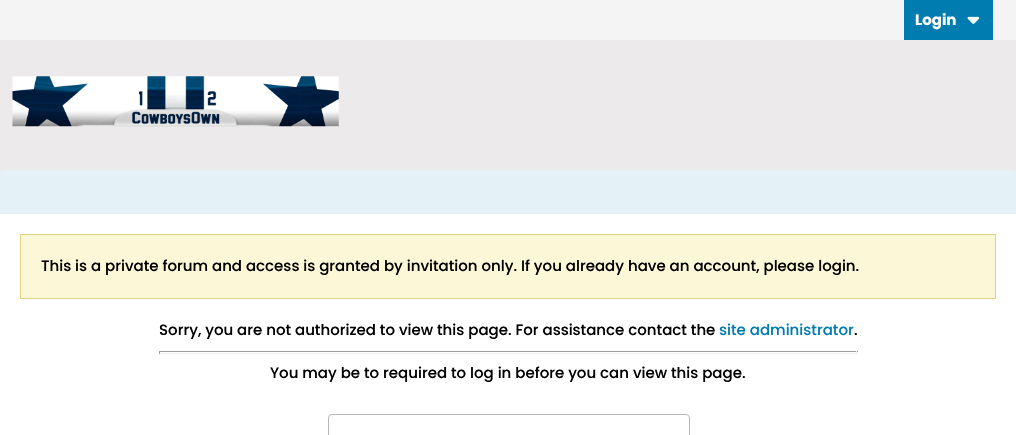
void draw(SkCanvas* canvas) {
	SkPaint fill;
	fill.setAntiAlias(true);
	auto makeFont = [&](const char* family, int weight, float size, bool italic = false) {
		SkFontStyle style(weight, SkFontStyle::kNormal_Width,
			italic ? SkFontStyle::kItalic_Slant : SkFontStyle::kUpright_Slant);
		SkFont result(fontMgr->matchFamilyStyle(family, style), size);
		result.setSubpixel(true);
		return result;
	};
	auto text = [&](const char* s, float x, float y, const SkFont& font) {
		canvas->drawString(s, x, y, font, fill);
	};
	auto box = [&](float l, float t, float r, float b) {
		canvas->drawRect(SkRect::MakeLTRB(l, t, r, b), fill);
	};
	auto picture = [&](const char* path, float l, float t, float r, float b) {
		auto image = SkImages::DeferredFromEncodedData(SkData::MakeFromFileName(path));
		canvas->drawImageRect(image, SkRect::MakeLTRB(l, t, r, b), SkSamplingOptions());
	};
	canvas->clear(0xFFECEAEA);
	fill.setColor(0xFFF5F4F4);
	box(0, 0, 1016, 40);
	fill.setColor(0xFF007CB0);
	box(904, 0, 993, 40);
	picture("image0.png", 967, 16, 980, 24);
	picture("image1.png", 12, 76, 339, 127);
	fill.setColor(0xFFE4F1F6);
	canvas->drawPath(SkPathBuilder().moveTo(4, 170).lineTo(1012, 170).cubicTo(1014, 170, 1016, 172, 1016, 174).lineTo(1016, 214).lineTo(0, 214).lineTo(0, 174).cubicTo(0, 172, 2, 170, 4, 170).close().detach(), fill);
	fill.setColor(0xFFFFFFFF);
	box(0, 214, 1016, 435);
	fill.setColor(0xFFFCF7D7);
	canvas->drawRect(SkRect::MakeLTRB(20.5f, 234.5f, 995.5f, 298.5f), fill);
	fill.setStyle(SkPaint::kStroke_Style);
	fill.setStrokeWidth(1);
	fill.setColor(0xFFE1D47E);
	canvas->drawRect(SkRect::MakeLTRB(20.5f, 234.5f, 995.5f, 298.5f), fill);
	fill.setStyle(SkPaint::kFill_Style);
	fill.setColor(0xFF9F9F9F);
	box(159, 351, 858, 352);
	fill.setColor(0xFFEEEEEE);
	box(856, 351, 857, 354);
	box(159, 353, 858, 354);
	fill.setColor(0xFF9F9F9F);
	box(159, 351, 160, 354);
	fill.setStyle(SkPaint::kStroke_Style);
	fill.setColor(0xFFB7B7B7);
	canvas->drawRoundRect(SkRect::MakeLTRB(328.5f, 414.5f, 689.5f, 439.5f), 3.5f, 3.5f, fill);
	auto font1 = makeFont("Poppins", 700, 15);
	fill.setStyle(SkPaint::kFill_Style);
	fill.setColor(0xFFFFFFFF);
	text("Login", 915, 25, font1);
	auto font2 = makeFont("Poppins", 500, 15);
	fill.setColor(0xFF000000);
	text("This is a private forum and access is granted by invitation only. If you already have an account, please login.", 41, 271, font2);
	text("Sorry, you are not authorized to view this page. For assistance contact the", 159, 335, font2);
	fill.setColor(0xFF007CB0);
	text("site administrator", 719, 335, font2);
	fill.setColor(0xFF000000);
	text(".", 854, 335, font2);
	text("You may be to required to log in before you can view this page.", 270, 378, font2);
}
